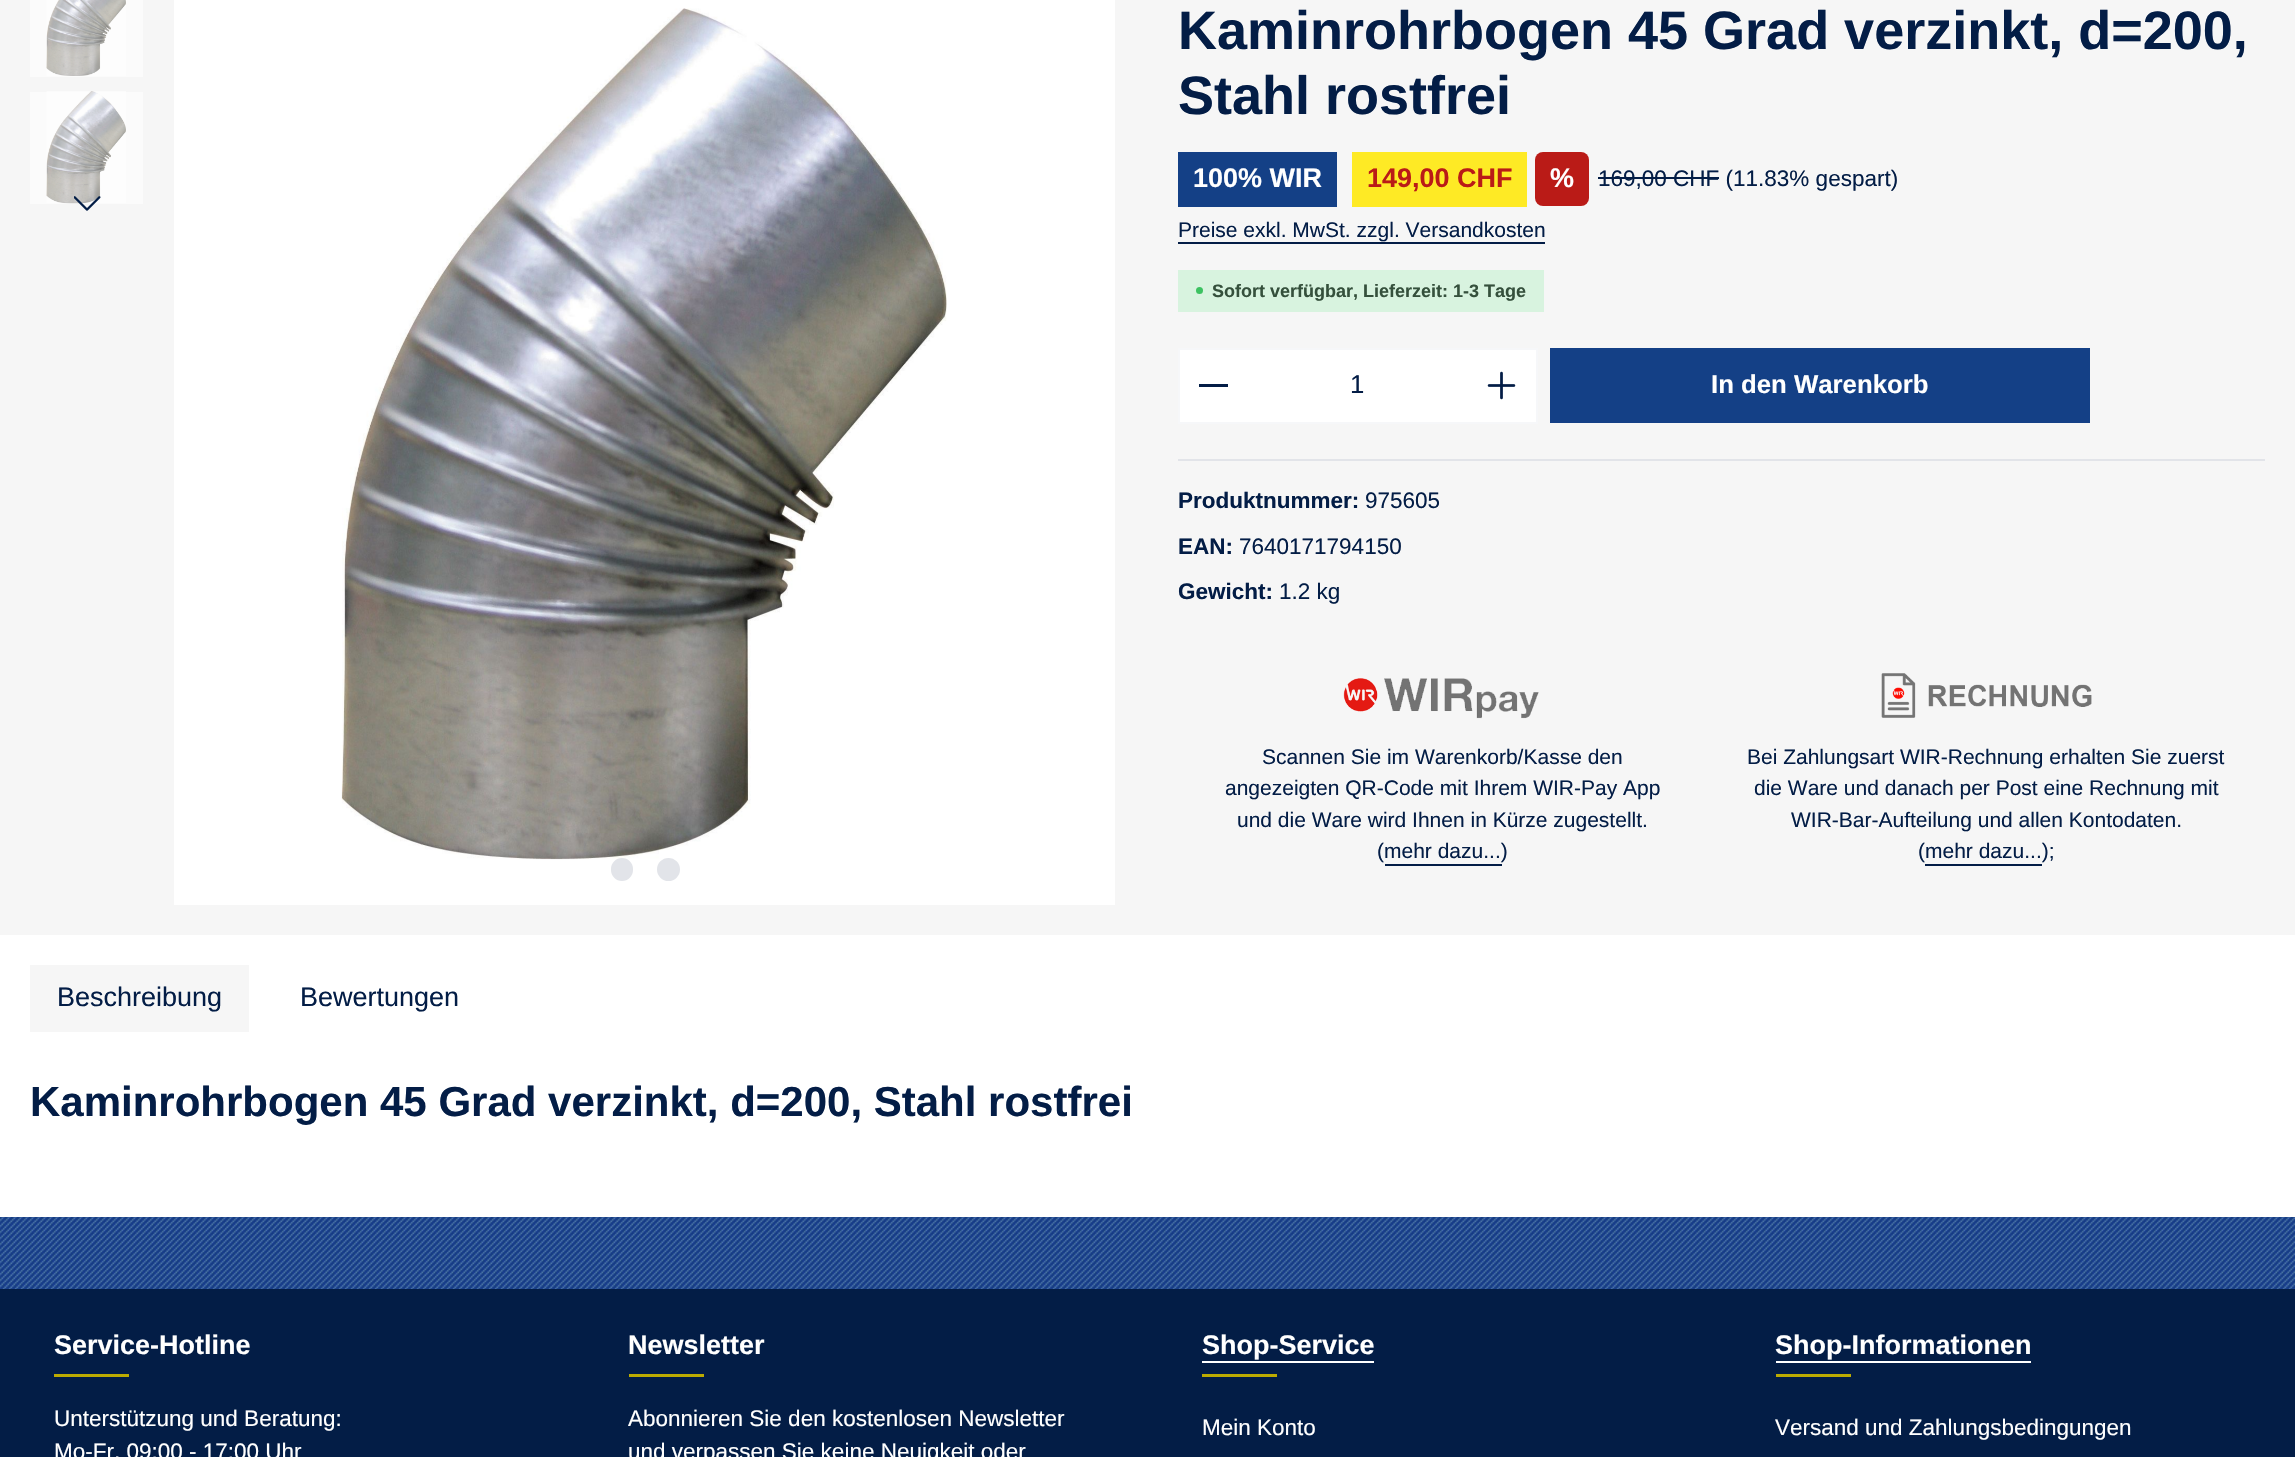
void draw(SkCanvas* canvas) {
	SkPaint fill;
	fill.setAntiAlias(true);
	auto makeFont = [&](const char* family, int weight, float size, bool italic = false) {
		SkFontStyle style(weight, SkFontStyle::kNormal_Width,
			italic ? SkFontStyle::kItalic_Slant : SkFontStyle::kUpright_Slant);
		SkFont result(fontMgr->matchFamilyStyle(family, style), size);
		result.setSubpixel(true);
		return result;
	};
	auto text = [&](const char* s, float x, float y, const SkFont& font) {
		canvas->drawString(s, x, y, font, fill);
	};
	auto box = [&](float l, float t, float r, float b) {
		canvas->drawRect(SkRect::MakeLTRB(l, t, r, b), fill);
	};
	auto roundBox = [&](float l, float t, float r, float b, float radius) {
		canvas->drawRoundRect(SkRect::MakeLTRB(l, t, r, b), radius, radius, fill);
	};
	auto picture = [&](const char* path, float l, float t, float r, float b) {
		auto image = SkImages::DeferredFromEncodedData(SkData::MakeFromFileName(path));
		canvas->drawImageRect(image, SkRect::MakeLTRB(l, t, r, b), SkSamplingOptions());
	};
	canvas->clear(0xFFF6F6F6);
	fill.setColor(0xFFFBFBFB);
	box(30, 0, 143, 77);
	picture("image0.png", 46, 0, 126, 76);
	box(30, 92, 143, 204);
	picture("image1.png", 46, 91, 126, 204);
	picture("image2.png", 74, 196, 101, 211);
	fill.setColor(0xFFFFFFFF);
	box(174, 0, 1115, 905);
	picture("image3.png", 341, 8, 947, 860);
	fill.setColor(0xFFE2E4E9);
	canvas->drawRoundRect(SkRect::MakeLTRB(612.5f, 859.5f, 631.5f, 879.5f), 9.5f, 9.5f, fill);
	fill.setStyle(SkPaint::kStroke_Style);
	fill.setStrokeWidth(3);
	canvas->drawRoundRect(SkRect::MakeLTRB(612.5f, 859.5f, 631.5f, 879.5f), 9.5f, 9.5f, fill);
	fill.setStyle(SkPaint::kFill_Style);
	canvas->drawCircle(668.5f, 869.5f, 10, fill);
	fill.setStyle(SkPaint::kStroke_Style);
	canvas->drawCircle(668.5f, 869.5f, 10, fill);
	fill.setStyle(SkPaint::kFill_Style);
	fill.setColor(0xFF144086);
	box(1178, 152, 1337, 207);
	fill.setColor(0xFFFEEA25);
	box(1352, 152, 1527, 207);
	fill.setColor(0xFFBA1B17);
	roundBox(1535, 152, 1589, 206, 8);
	fill.setColor(0xFF031D46);
	box(1598, 177, 1719, 179);
	box(1178, 242, 1545, 244);
	fill.setColor(0xFFD8F3DF);
	box(1178, 270, 1544, 312);
	fill.setColor(0xFF3CC261);
	canvas->drawCircle(1199.5f, 290.5f, 3.5f, fill);
	fill.setColor(0xFFF6F7F9);
	box(1178, 348, 1538, 350);
	box(1178, 422, 1469, 424);
	box(1178, 348, 1180, 423);
	fill.setColor(0xFFFFFFFF);
	box(1180, 350, 1536, 422);
	fill.setColor(0xFF031D46);
	box(1199, 384, 1228, 387);
	fill.setColor(0xFFF6F7F9);
	box(1536, 348, 1538, 423);
	box(1467, 422, 1538, 424);
	picture("image4.png", 1487, 371, 1516, 400);
	fill.setColor(0xFF144086);
	box(1550, 348, 2090, 423);
	fill.setColor(0xFFE2E4E9);
	box(1178, 459, 2265, 461);
	picture("image5.png", 1343, 678, 1539, 719);
	picture("image6.png", 1881, 673, 2092, 718);
	fill.setColor(0xFF031D46);
	box(1385, 864, 1502, 866);
	box(1925, 864, 2042, 866);
	fill.setColor(0xFFFFFFFF);
	box(0, 935, 2295, 1217);
	fill.setColor(0xFFF6F6F6);
	box(30, 965, 249, 1032);
	picture("image7.png", 0, 1217, 2295, 1289);
	fill.setColor(0xFF031D46);
	box(0, 1289, 2295, 1457);
	fill.setColor(0xFFBCAB01);
	box(54, 1374, 129, 1377);
	box(629, 1374, 704, 1377);
	fill.setColor(0xFFFFFFFF);
	box(1202, 1361, 1374, 1363);
	fill.setColor(0xFFBCAB01);
	box(1202, 1374, 1277, 1377);
	fill.setColor(0xFFFFFFFF);
	box(1776, 1361, 2031, 1363);
	fill.setColor(0xFFBCAB01);
	box(1776, 1374, 1851, 1377);
	auto font1 = makeFont("Liberation Sans", 700, 54);
	fill.setColor(0xFF031D46);
	text("Kaminrohrbogen 45 Grad verzinkt, d=200,", 1178, 49, font1);
	text("Stahl rostfrei", 1178, 114, font1);
	auto font2 = makeFont("Liberation Sans", 700, 27);
	fill.setColor(0xFFFFFFFF);
	text("100% WIR", 1193, 187, font2);
	fill.setColor(0xFFBA1B17);
	text("149,00 CHF", 1367, 187, font2);
	fill.setColor(0xFFFFFFFF);
	text("%", 1550, 187, font2);
	auto font3 = makeFont("Liberation Sans", 400, 22.5f);
	fill.setColor(0xFF031D46);
	text("169,00 CHF (11.83% gespart)", 1598, 186, font3);
	auto font4 = makeFont("Liberation Sans", 400, 21);
	text("Preise exkl. MwSt. zzgl. Versandkosten", 1178, 237, font4);
	auto font5 = makeFont("Liberation Sans", 700, 18);
	fill.setColor(0xFF35503C);
	text("Sofort verfügbar, Lieferzeit: 1-3 Tage", 1212, 297, font5);
	auto font6 = makeFont("Liberation Sans", 400, 25.75f);
	fill.setColor(0xFF031D46);
	text("1", 1350, 393, font6);
	auto font7 = makeFont("Liberation Sans", 700, 25.75f);
	fill.setColor(0xFFFFFFFF);
	text("In den Warenkorb", 1711, 393, font7);
	auto font8 = makeFont("Liberation Sans", 700, 22.5f);
	fill.setColor(0xFF031D46);
	text("Produktnummer:", 1178, 508, font8);
	text("975605", 1365, 508, font3);
	text("EAN:", 1178, 554, font8);
	text("7640171794150", 1239, 554, font3);
	text("Gewicht:", 1178, 599, font8);
	text("1.2 kg", 1279, 599, font3);
	text("Scannen Sie im Warenkorb/Kasse den", 1262, 764, font4);
	text("angezeigten QR-Code mit Ihrem WIR-Pay App", 1225, 795, font4);
	text("und die Ware wird Ihnen in Kürze zugestellt.", 1237, 827, font4);
	text("(mehr dazu...)", 1377, 858, font4);
	text("Bei Zahlungsart WIR-Rechnung erhalten Sie zuerst", 1747, 764, font4);
	text("die Ware und danach per Post eine Rechnung mit", 1754, 795, font4);
	text("WIR-Bar-Aufteilung und allen Kontodaten.", 1791, 827, font4);
	text("(mehr dazu...);", 1918, 858, font4);
	auto font9 = makeFont("Liberation Sans", 400, 27);
	text("Beschreibung", 57, 1006, font9);
	text("Bewertungen", 300, 1006, font9);
	auto font10 = makeFont("Liberation Sans", 700, 42);
	text("Kaminrohrbogen 45 Grad verzinkt, d=200, Stahl rostfrei", 30, 1116, font10);
	fill.setColor(0xFFFFFFFF);
	text("Service-Hotline", 54, 1354, font2);
	text("Unterstützung und Beratung:", 54, 1426, font3);
	text("Mo-Fr, 09:00 - 17:00 Uhr", 54, 1459, font3);
	text("Newsletter", 628, 1354, font2);
	text("Abonnieren Sie den kostenlosen Newsletter", 628, 1426, font3);
	text("und verpassen Sie keine Neuigkeit oder", 628, 1459, font3);
	text("Shop-Service", 1202, 1354, font2);
	text("Mein Konto", 1202, 1435, font3);
	text("Shop-Informationen", 1775, 1354, font2);
	text("Versand und Zahlungsbedingungen", 1775, 1435, font3);
}
